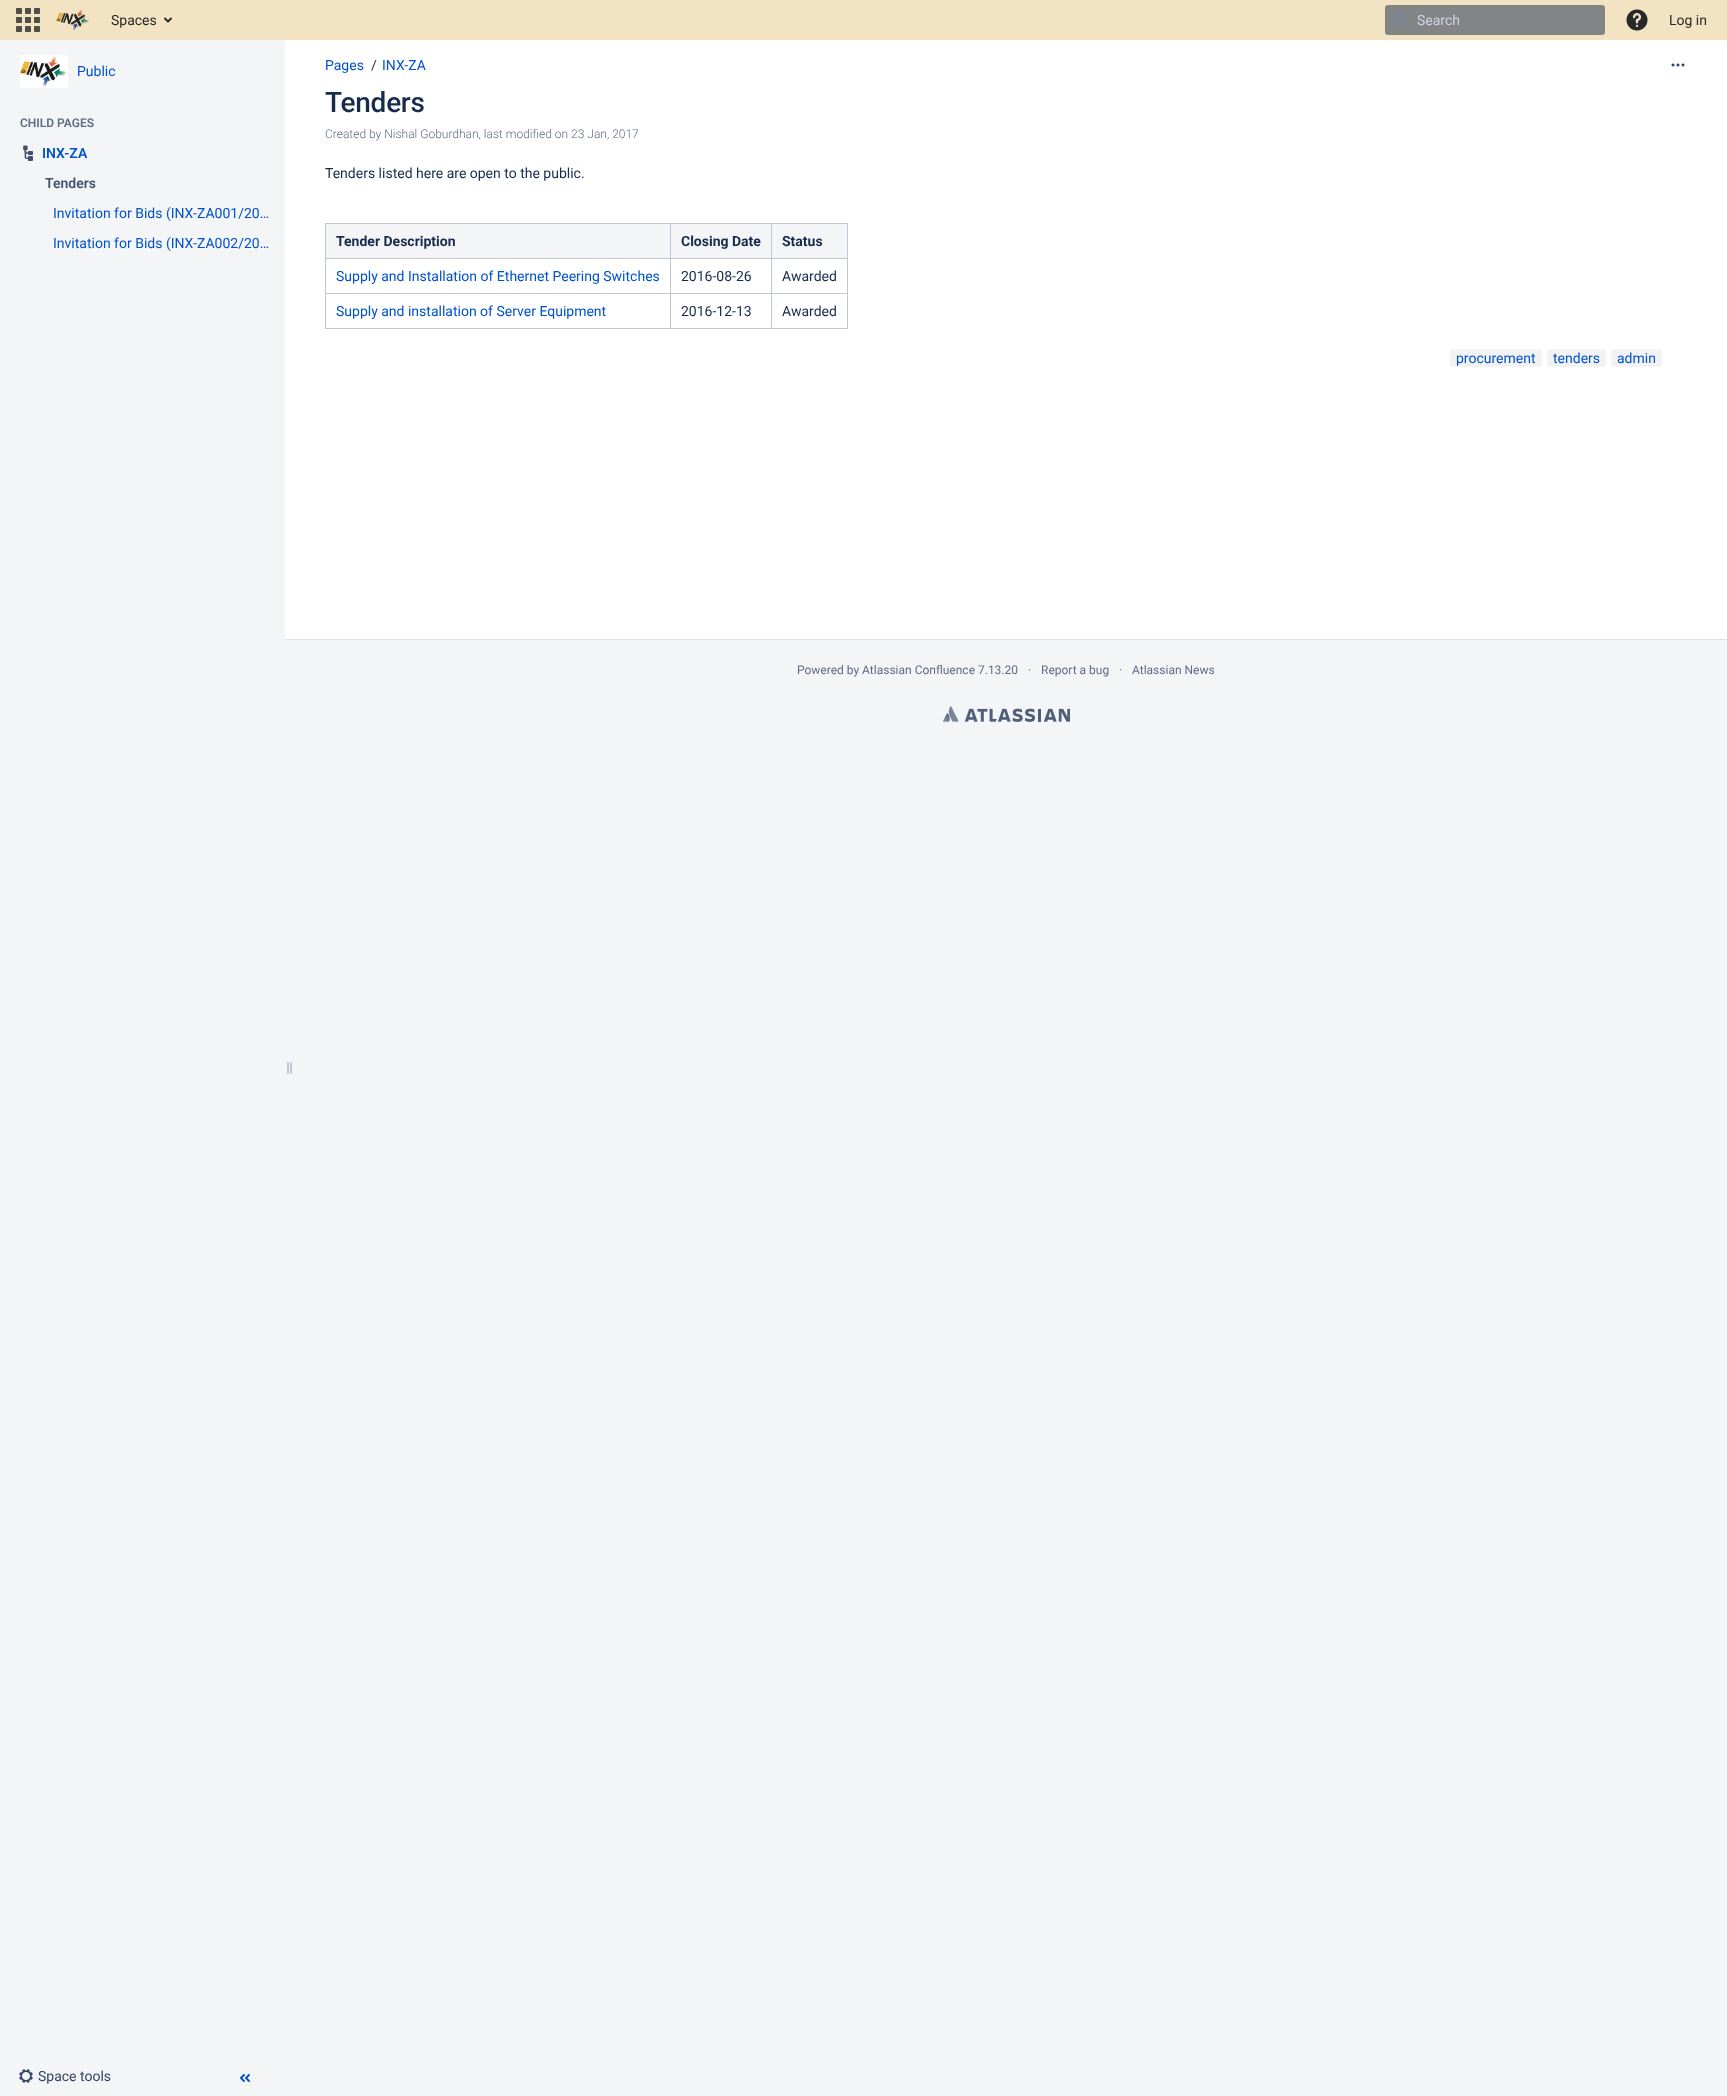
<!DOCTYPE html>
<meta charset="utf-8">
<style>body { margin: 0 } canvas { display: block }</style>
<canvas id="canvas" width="1727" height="2096"></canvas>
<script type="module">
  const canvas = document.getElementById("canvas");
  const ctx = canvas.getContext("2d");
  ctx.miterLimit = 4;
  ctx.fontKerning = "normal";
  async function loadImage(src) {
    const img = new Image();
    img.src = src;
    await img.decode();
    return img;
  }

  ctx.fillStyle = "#f4f5f7";
  ctx.fillRect(0, 0, 1727, 2096);
  ctx.fillStyle = "#f2e3c2";
  ctx.fillRect(0, 0, 1727, 40);
  ctx.drawImage(await loadImage("img1.png"), 16, 8, 24, 24);
  ctx.drawImage(await loadImage("img2.png"), 56, 9, 34, 22);
  ctx.font = "14px Roboto";
  ctx.fillStyle = "#292929";
  ctx.fillText("Spaces", 111, 25);
  ctx.drawImage(await loadImage("img3.png"), 164, 17, 8, 6);
  ctx.fillStyle = "#828485";
  ctx.beginPath();
  ctx.roundRect(1385, 5, 220, 30, 3);
  ctx.fill();
  ctx.drawImage(await loadImage("img4.png"), 1393, 13, 14, 14);
  ctx.fillStyle = "#ccd6e7";
  ctx.fillText("Search", 1417, 25);
  ctx.drawImage(await loadImage("img5.png"), 1626, 9, 22, 22);
  ctx.fillStyle = "#292929";
  ctx.fillText("Log in", 1669, 25);
  ctx.fillStyle = "#ffffff";
  ctx.beginPath();
  ctx.roundRect(20, 55, 48, 33, 3);
  ctx.fill();
  ctx.drawImage(await loadImage("img6.png"), 20, 56, 47, 31);
  ctx.fillStyle = "#0052cc";
  ctx.fillText("Public", 77, 76);
  ctx.font = "600 12px Roboto";
  ctx.fillStyle = "#5e6c84";
  ctx.fillText("CHILD PAGES", 20, 127);
  ctx.drawImage(await loadImage("img7.png"), 23, 145, 10, 16);
  ctx.font = "600 14px Roboto";
  ctx.fillStyle = "#0052cc";
  ctx.fillText("INX-ZA", 42, 158);
  ctx.fillStyle = "#42526e";
  ctx.fillText("Tenders", 45, 188);
  ctx.font = "14px Roboto";
  ctx.fillStyle = "#0052cc";
  ctx.fillText("Invitation for Bids (INX-ZA001/20…", 53, 218);
  ctx.fillText("Invitation for Bids (INX-ZA002/20…", 53, 248);
  ctx.drawImage(await loadImage("img8.png"), 287, 1062, 5, 12);
  ctx.drawImage(await loadImage("img9.png"), 19, 2069, 14, 14);
  ctx.fillStyle = "#344563";
  ctx.fillText("Space tools", 38, 2081);
  ctx.drawImage(await loadImage("img10.png"), 240, 2074, 10, 8);
  ctx.fillStyle = "#ffffff";
  ctx.fillRect(285, 40, 1442, 599);
  ctx.fillStyle = "#dfe1e6";
  ctx.fillRect(285, 639, 1442, 1);
  ctx.fillStyle = "#0052cc";
  ctx.fillText("Pages", 325, 70);
  ctx.fillStyle = "#333333";
  ctx.fillText("/", 371, 70);
  ctx.fillStyle = "#0052cc";
  ctx.fillText("INX-ZA", 382, 70);
  ctx.letterSpacing = "-0.25px";
  ctx.font = "500 28px Roboto";
  ctx.fillStyle = "#172b4d";
  ctx.fillText("Tenders", 325, 112);
  ctx.drawImage(await loadImage("img11.png"), 1671, 63, 14, 4);
  ctx.letterSpacing = "0px";
  ctx.font = "300 12px Roboto";
  ctx.fillStyle = "#5e6c84";
  ctx.fillText("Created by Nishal Goburdhan, last modified on 23 Jan, 2017", 325, 138);
  ctx.font = "14px Roboto";
  ctx.fillStyle = "#172b4d";
  ctx.fillText("Tenders listed here are open to the public.", 325, 178);
  ctx.fillStyle = "#f4f5f7";
  ctx.fillRect(326, 224, 344, 34);
  ctx.fillStyle = "#c1c7d0";
  ctx.fillRect(771, 223, 77, 1);
  ctx.fillRect(771, 258, 77, 1);
  ctx.fillRect(771, 293, 77, 1);
  ctx.fillRect(847, 293, 1, 36);
  ctx.fillRect(771, 328, 77, 1);
  ctx.fillRect(771, 293, 1, 36);
  ctx.fillRect(670, 293, 102, 1);
  ctx.fillRect(771, 258, 1, 36);
  ctx.fillRect(670, 258, 102, 1);
  ctx.fillRect(771, 223, 1, 36);
  ctx.fillRect(670, 223, 102, 1);
  ctx.fillRect(670, 328, 102, 1);
  ctx.fillRect(670, 293, 1, 36);
  ctx.fillRect(325, 293, 346, 1);
  ctx.fillRect(670, 258, 1, 36);
  ctx.fillRect(325, 258, 346, 1);
  ctx.fillRect(670, 223, 1, 36);
  ctx.fillRect(325, 223, 346, 1);
  ctx.fillRect(325, 328, 346, 1);
  ctx.fillRect(325, 293, 1, 36);
  ctx.fillRect(325, 258, 1, 36);
  ctx.fillRect(325, 223, 1, 36);
  ctx.font = "bold 14px Roboto";
  ctx.fillStyle = "#172b4d";
  ctx.fillText("Tender Description", 336, 246);
  ctx.fillStyle = "#f4f5f7";
  ctx.fillRect(671, 224, 100, 34);
  ctx.fillStyle = "#172b4d";
  ctx.fillText("Closing Date", 681, 246);
  ctx.fillStyle = "#f4f5f7";
  ctx.fillRect(772, 224, 75, 34);
  ctx.fillStyle = "#c1c7d0";
  ctx.fillRect(847, 258, 1, 36);
  ctx.fillRect(847, 223, 1, 36);
  ctx.fillStyle = "#172b4d";
  ctx.fillText("Status", 782, 246);
  ctx.font = "14px Roboto";
  ctx.fillStyle = "#0052cc";
  ctx.fillText("Supply and Installation of Ethernet Peering Switches", 336, 281);
  ctx.fillStyle = "#172b4d";
  ctx.fillText("2016-08-26", 681, 281);
  ctx.fillText("Awarded", 782, 281);
  ctx.fillStyle = "#0052cc";
  ctx.fillText("Supply and installation of Server Equipment", 336, 316);
  ctx.fillStyle = "#172b4d";
  ctx.fillText("2016-12-13", 681, 316);
  ctx.fillText("Awarded", 782, 316);
  ctx.fillStyle = "#f2f2f2";
  ctx.beginPath();
  ctx.roundRect(1450.5, 349.5, 91, 17, 2.5);
  ctx.fill();
  ctx.strokeStyle = "#f4f5f7";
  ctx.stroke();
  ctx.fillStyle = "#0052cc";
  ctx.fillText("procurement", 1456, 363);
  ctx.fillStyle = "#f2f2f2";
  ctx.beginPath();
  ctx.roundRect(1547.5, 349.5, 58, 17, 2.5);
  ctx.fill();
  ctx.stroke();
  ctx.fillStyle = "#0052cc";
  ctx.fillText("tenders", 1553, 363);
  ctx.fillStyle = "#f2f2f2";
  ctx.beginPath();
  ctx.roundRect(1611.5, 349.5, 50, 17, 2.5);
  ctx.fill();
  ctx.stroke();
  ctx.fillStyle = "#0052cc";
  ctx.fillText("admin", 1617, 363);
  ctx.font = "12px Roboto";
  ctx.fillStyle = "#5e6c84";
  ctx.fillText("Powered by Atlassian Confluence 7.13.20", 797, 674);
  ctx.fillText("·", 1028, 674);
  ctx.fillText("Report a bug", 1041, 674);
  ctx.fillText("·", 1119, 674);
  ctx.fillText("Atlassian News", 1132, 674);
  ctx.drawImage(await loadImage("img12.png"), 943, 706, 127, 16);
</script>
